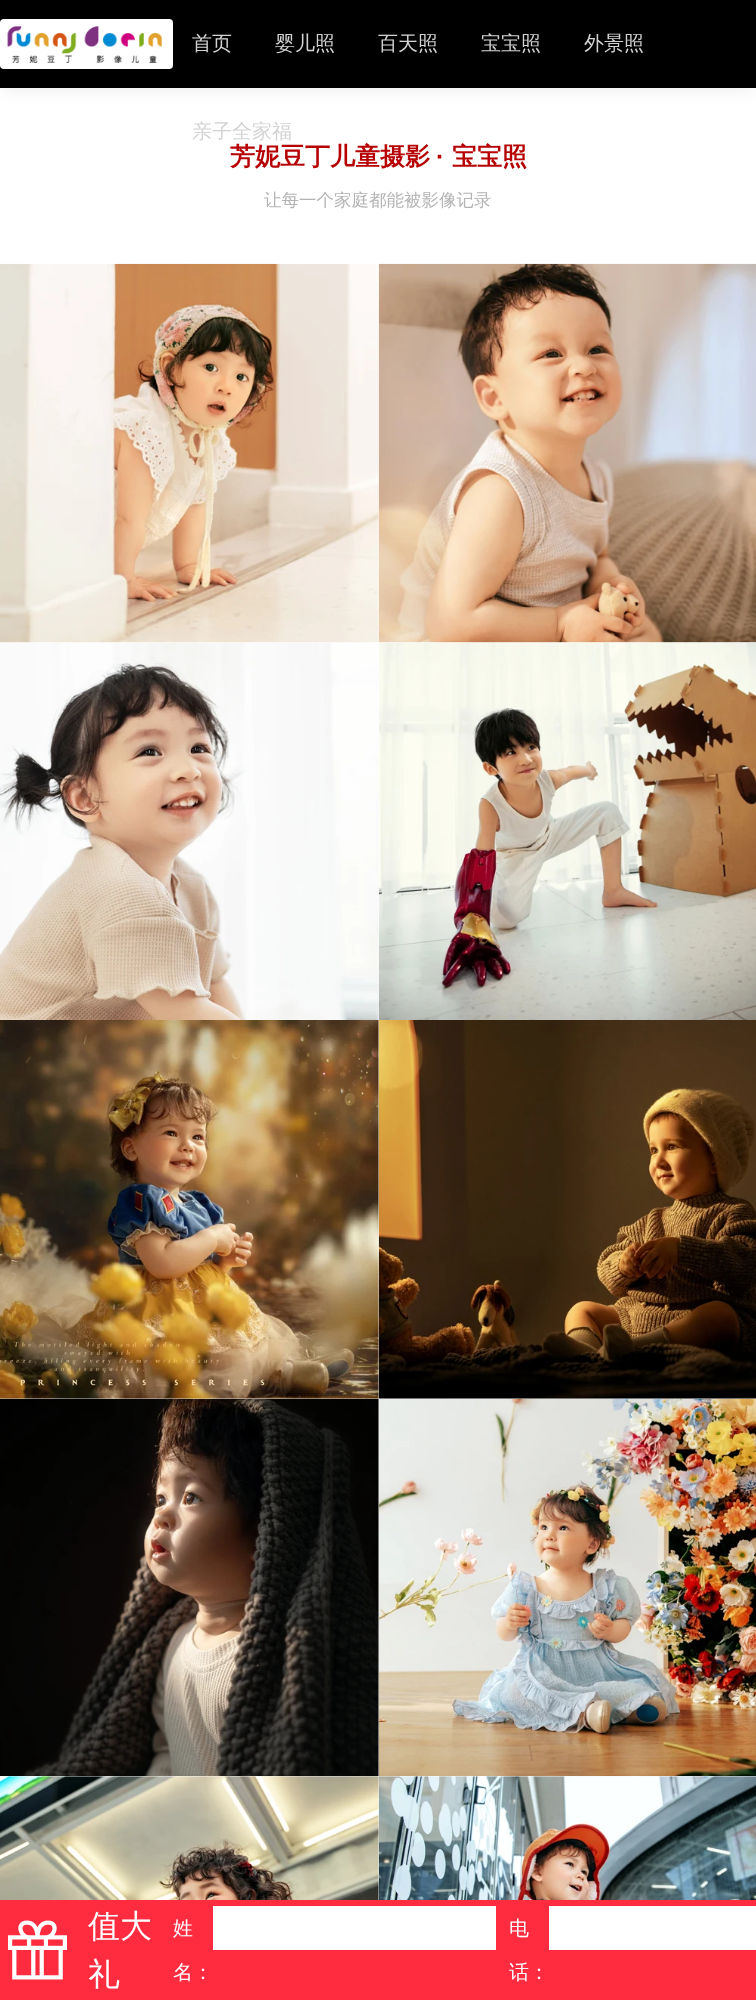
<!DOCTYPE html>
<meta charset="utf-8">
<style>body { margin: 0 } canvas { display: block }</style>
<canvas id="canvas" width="756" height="2000"></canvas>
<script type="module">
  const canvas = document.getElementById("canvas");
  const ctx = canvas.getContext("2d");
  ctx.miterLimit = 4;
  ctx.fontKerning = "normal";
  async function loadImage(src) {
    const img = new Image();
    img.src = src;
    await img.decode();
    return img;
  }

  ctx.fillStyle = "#ffffff";
  ctx.fillRect(0, 0, 756, 2000);
  ctx.fillStyle = "rgba(0, 0, 0, 0.06)";
  ctx.filter = "blur(7.5px)";
  ctx.beginPath();
  ctx.rect(1, 6, 754, 85);
  ctx.fill();
  ctx.filter = "none";
  ctx.fillStyle = "#000000";
  ctx.fillRect(0, 0, 756, 88);
  ctx.fillStyle = "#ffffff";
  ctx.beginPath();
  ctx.roundRect(0, 19, 173, 50, 4);
  ctx.fill();
  ctx.drawImage(await loadImage("img1.png"), 7, 26, 155, 37);
  ctx.font = "500 20px WenQuanYi Zen Hei";
  ctx.fillStyle = "#d3d3d3";
  ctx.fillText("首页", 192, 50);
  ctx.fillText("婴儿照", 275, 50);
  ctx.fillText("百天照", 378, 50);
  ctx.fillText("宝宝照", 481, 50);
  ctx.fillText("外景照", 584, 50);
  ctx.fillText("亲子全家福", 192, 138);
  ctx.font = "bold 25px WenQuanYi Zen Hei";
  ctx.fillStyle = "#b60203";
  ctx.fillText("芳妮豆丁儿童摄影", 230, 165);
  ctx.font = "bold 25px Liberation Sans";
  ctx.fillText("·", 436, 165);
  ctx.font = "bold 25px WenQuanYi Zen Hei";
  ctx.fillText("宝宝照", 452, 165);
  ctx.font = "500 17.5px WenQuanYi Zen Hei";
  ctx.fillStyle = "#b4b4b4";
  ctx.fillText("让每一个家庭都能被影像记录", 264, 206);
  ctx.drawImage(await loadImage("img2.png"), 0, 263, 379, 380);
  ctx.drawImage(await loadImage("img3.png"), 378, 263, 378, 380);
  ctx.drawImage(await loadImage("img4.png"), 0, 643, 379, 377);
  ctx.drawImage(await loadImage("img5.png"), 378, 642, 378, 378);
  ctx.drawImage(await loadImage("img6.png"), 0, 1020, 379, 379);
  ctx.drawImage(await loadImage("img7.png"), 378, 1020, 378, 379);
  ctx.drawImage(await loadImage("img8.png"), 0, 1398, 379, 379);
  ctx.drawImage(await loadImage("img9.png"), 378, 1398, 378, 379);
  ctx.drawImage(await loadImage("img10.png"), 0, 1776, 379, 124);
  ctx.drawImage(await loadImage("img11.png"), 378, 1776, 378, 124);
  ctx.fillStyle = "#ff2c40";
  ctx.fillRect(0, 1900, 756, 100);
  ctx.drawImage(await loadImage("img12.png"), 8, 1920, 59, 60);
  ctx.font = "500 32px WenQuanYi Zen Hei";
  ctx.fillStyle = "#ffffff";
  ctx.fillText("值大", 88, 1937);
  ctx.fillText("礼", 88, 1985);
  ctx.font = "500 20px WenQuanYi Zen Hei";
  ctx.fillText("姓", 173, 1935);
  ctx.fillText("名：", 173, 1979);
  ctx.fillRect(213, 1906, 283, 44);
  ctx.fillText("电", 509, 1935);
  ctx.fillText("话：", 509, 1979);
  ctx.fillRect(549, 1906, 207, 44);
</script>
